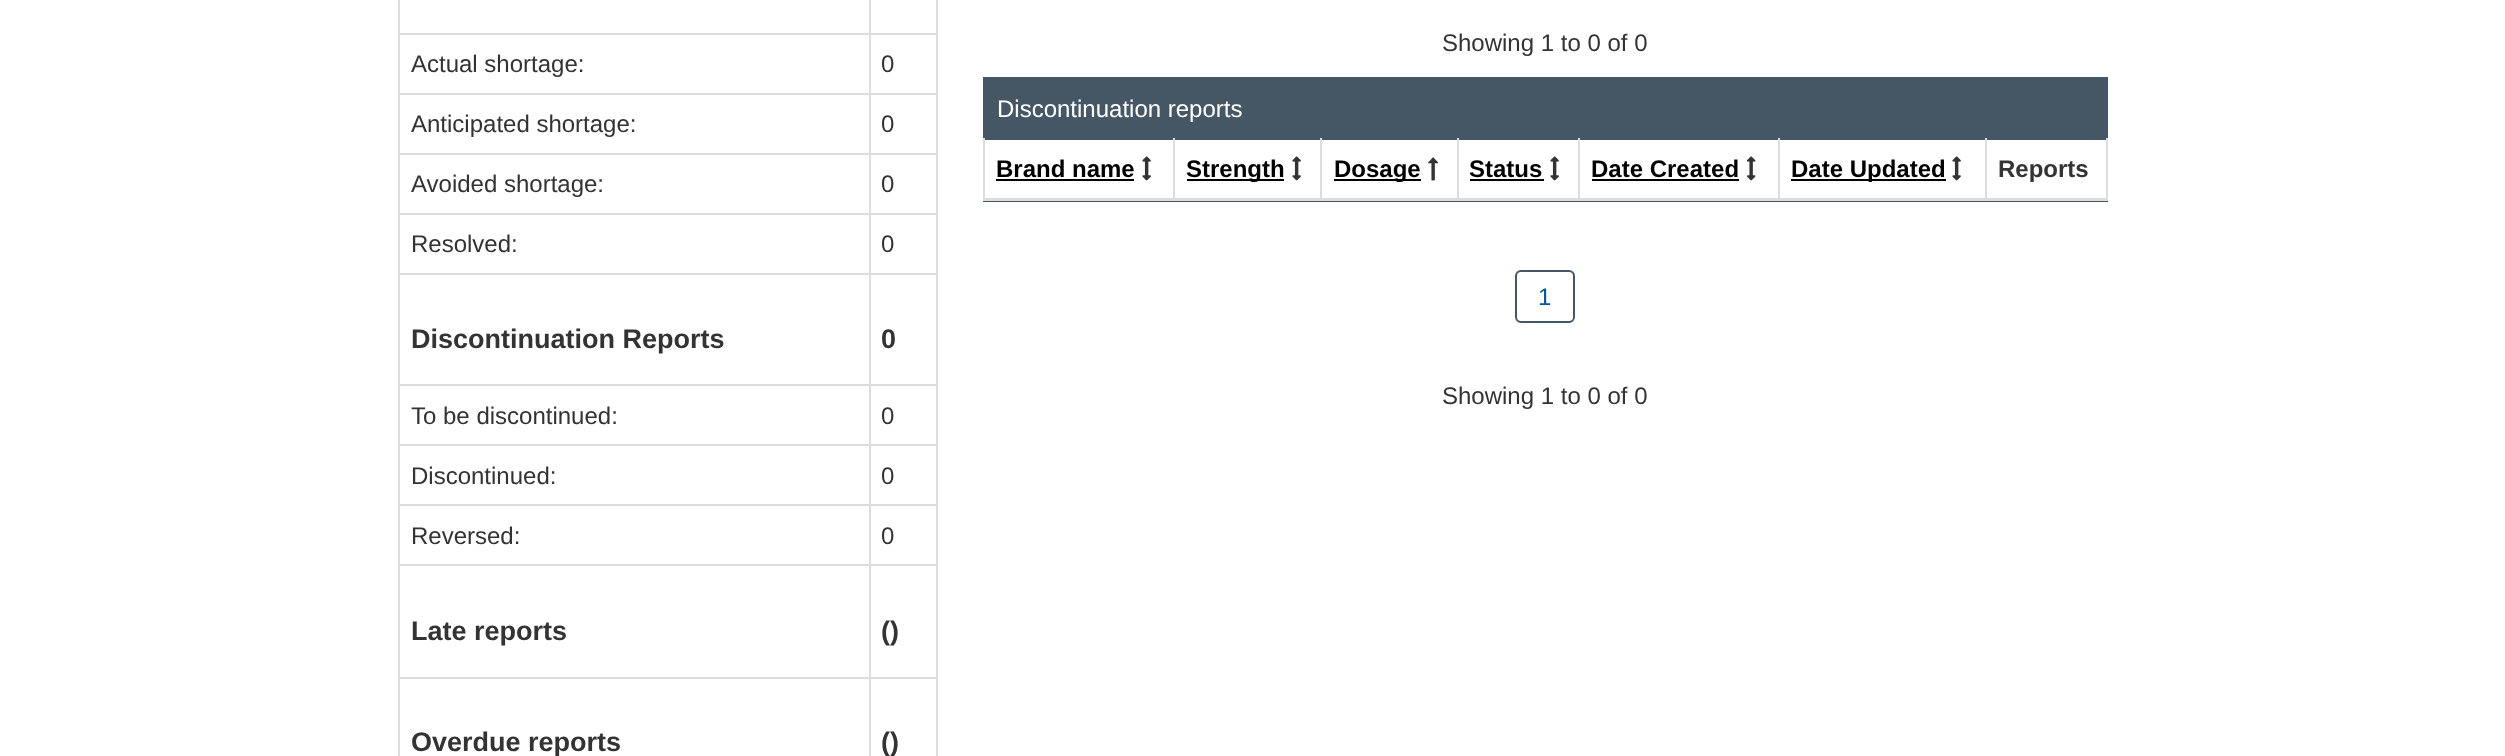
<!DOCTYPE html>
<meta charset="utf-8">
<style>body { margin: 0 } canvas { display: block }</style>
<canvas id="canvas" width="2505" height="756"></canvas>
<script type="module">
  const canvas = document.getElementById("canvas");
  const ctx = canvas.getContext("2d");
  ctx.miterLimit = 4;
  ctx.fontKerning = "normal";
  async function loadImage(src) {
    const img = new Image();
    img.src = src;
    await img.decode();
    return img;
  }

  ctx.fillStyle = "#ffffff";
  ctx.fillRect(0, 0, 2505, 756);
  ctx.fillStyle = "#dddddd";
  ctx.fillRect(936, 0, 2, 756);
  ctx.fillRect(398, 0, 2, 756);
  ctx.fillRect(869, 33, 69, 2);
  ctx.fillRect(869, 93, 69, 2);
  ctx.fillRect(869, 153, 69, 2);
  ctx.fillRect(869, 213, 69, 2);
  ctx.fillRect(869, 273, 69, 2);
  ctx.fillRect(869, 384, 69, 2);
  ctx.fillRect(869, 444, 69, 2);
  ctx.fillRect(869, 504, 69, 2);
  ctx.fillRect(869, 564, 69, 2);
  ctx.fillRect(869, 677, 69, 2);
  ctx.fillRect(869, 677, 2, 79);
  ctx.fillRect(398, 677, 472, 2);
  ctx.fillRect(869, 564, 2, 114);
  ctx.fillRect(398, 564, 472, 2);
  ctx.fillRect(869, 504, 2, 62);
  ctx.fillRect(398, 504, 472, 2);
  ctx.fillRect(869, 444, 2, 62);
  ctx.fillRect(398, 444, 472, 2);
  ctx.fillRect(869, 384, 2, 62);
  ctx.fillRect(398, 384, 472, 2);
  ctx.fillRect(869, 273, 2, 113);
  ctx.fillRect(398, 273, 472, 2);
  ctx.fillRect(869, 213, 2, 62);
  ctx.fillRect(398, 213, 472, 2);
  ctx.fillRect(869, 153, 2, 62);
  ctx.fillRect(398, 153, 472, 2);
  ctx.fillRect(869, 93, 2, 62);
  ctx.fillRect(398, 93, 472, 2);
  ctx.fillRect(869, 33, 2, 62);
  ctx.fillRect(398, 33, 472, 2);
  ctx.fillRect(869, 0, 2, 35);
  ctx.font = "24px Liberation Sans";
  ctx.fillStyle = "#333333";
  ctx.fillText("Actual shortage:", 411, 72);
  ctx.fillText("0", 881, 72);
  ctx.fillText("Anticipated shortage:", 411, 132);
  ctx.fillText("0", 881, 132);
  ctx.fillText("Avoided shortage:", 411, 192);
  ctx.fillText("0", 881, 192);
  ctx.fillText("Resolved:", 411, 252);
  ctx.fillText("0", 881, 252);
  ctx.font = "bold 27px Liberation Sans";
  ctx.fillText("Discontinuation Reports", 411, 348);
  ctx.fillText("0", 881, 348);
  ctx.font = "24px Liberation Sans";
  ctx.fillText("To be discontinued:", 411, 424);
  ctx.fillText("0", 881, 424);
  ctx.fillText("Discontinued:", 411, 484);
  ctx.fillText("0", 881, 484);
  ctx.fillText("Reversed:", 411, 544);
  ctx.fillText("0", 881, 544);
  ctx.font = "bold 27px Liberation Sans";
  ctx.fillText("Late reports", 411, 640);
  ctx.fillText("()", 881, 640);
  ctx.fillText("Overdue reports", 411, 751);
  ctx.fillText("()", 881, 751);
  ctx.font = "24px Liberation Sans";
  ctx.fillText("Showing 1 to 0 of 0", 1442, 51);
  ctx.fillStyle = "#455664";
  ctx.fillRect(983, 77, 1125, 63);
  ctx.fillStyle = "#ffffff";
  ctx.fillText("Discontinuation reports", 997, 117);
  ctx.fillStyle = "#455664";
  ctx.fillRect(983, 201, 1125, 1);
  ctx.fillStyle = "#dddddd";
  ctx.fillRect(983, 138, 2, 63);
  ctx.font = "bold 24px Liberation Sans";
  ctx.fillStyle = "#000000";
  ctx.fillText("Brand name", 996, 177);
  ctx.fillRect(996, 179, 138, 2);
  ctx.drawImage(await loadImage("img1.png"), 1142, 156, 9, 25);
  ctx.fillStyle = "#dddddd";
  ctx.fillRect(1173, 138, 2, 63);
  ctx.fillStyle = "#000000";
  ctx.fillRect(1187, 179, 97, 2);
  ctx.fillText("Strength", 1186, 177);
  ctx.drawImage(await loadImage("img1.png"), 1292, 156, 9, 25);
  ctx.fillStyle = "#dddddd";
  ctx.fillRect(1320, 138, 2, 63);
  ctx.fillStyle = "#000000";
  ctx.fillRect(1334, 179, 87, 2);
  ctx.fillText("Dosage", 1334, 177);
  ctx.drawImage(await loadImage("img2.png"), 1428, 157, 11, 24);
  ctx.fillStyle = "#dddddd";
  ctx.fillRect(1457, 138, 2, 63);
  ctx.fillStyle = "#000000";
  ctx.fillText("Status", 1469, 177);
  ctx.fillRect(1470, 179, 74, 2);
  ctx.drawImage(await loadImage("img1.png"), 1550, 156, 9, 25);
  ctx.fillStyle = "#dddddd";
  ctx.fillRect(1578, 138, 2, 63);
  ctx.fillStyle = "#000000";
  ctx.fillText("Date Created", 1591, 177);
  ctx.fillRect(1592, 179, 147, 2);
  ctx.drawImage(await loadImage("img3.png"), 1746, 156, 10, 25);
  ctx.fillStyle = "#dddddd";
  ctx.fillRect(1778, 138, 2, 63);
  ctx.fillStyle = "#000000";
  ctx.fillRect(1791, 179, 155, 2);
  ctx.fillText("Date Updated", 1791, 177);
  ctx.drawImage(await loadImage("img1.png"), 1952, 156, 9, 25);
  ctx.fillStyle = "#dddddd";
  ctx.fillRect(2106, 138, 2, 63);
  ctx.fillRect(1985, 138, 2, 63);
  ctx.fillRect(983, 198, 1125, 3);
  ctx.fillStyle = "#333333";
  ctx.fillText("Reports", 1998, 177);
  ctx.beginPath();
  ctx.roundRect(1516, 271, 58, 51, 5);
  ctx.strokeStyle = "#455664";
  ctx.lineWidth = 2;
  ctx.stroke();
  ctx.font = "24px Liberation Sans";
  ctx.fillStyle = "#005897";
  ctx.fillText("1", 1538, 305);
  ctx.fillStyle = "#333333";
  ctx.fillText("Showing 1 to 0 of 0", 1442, 404);
</script>
